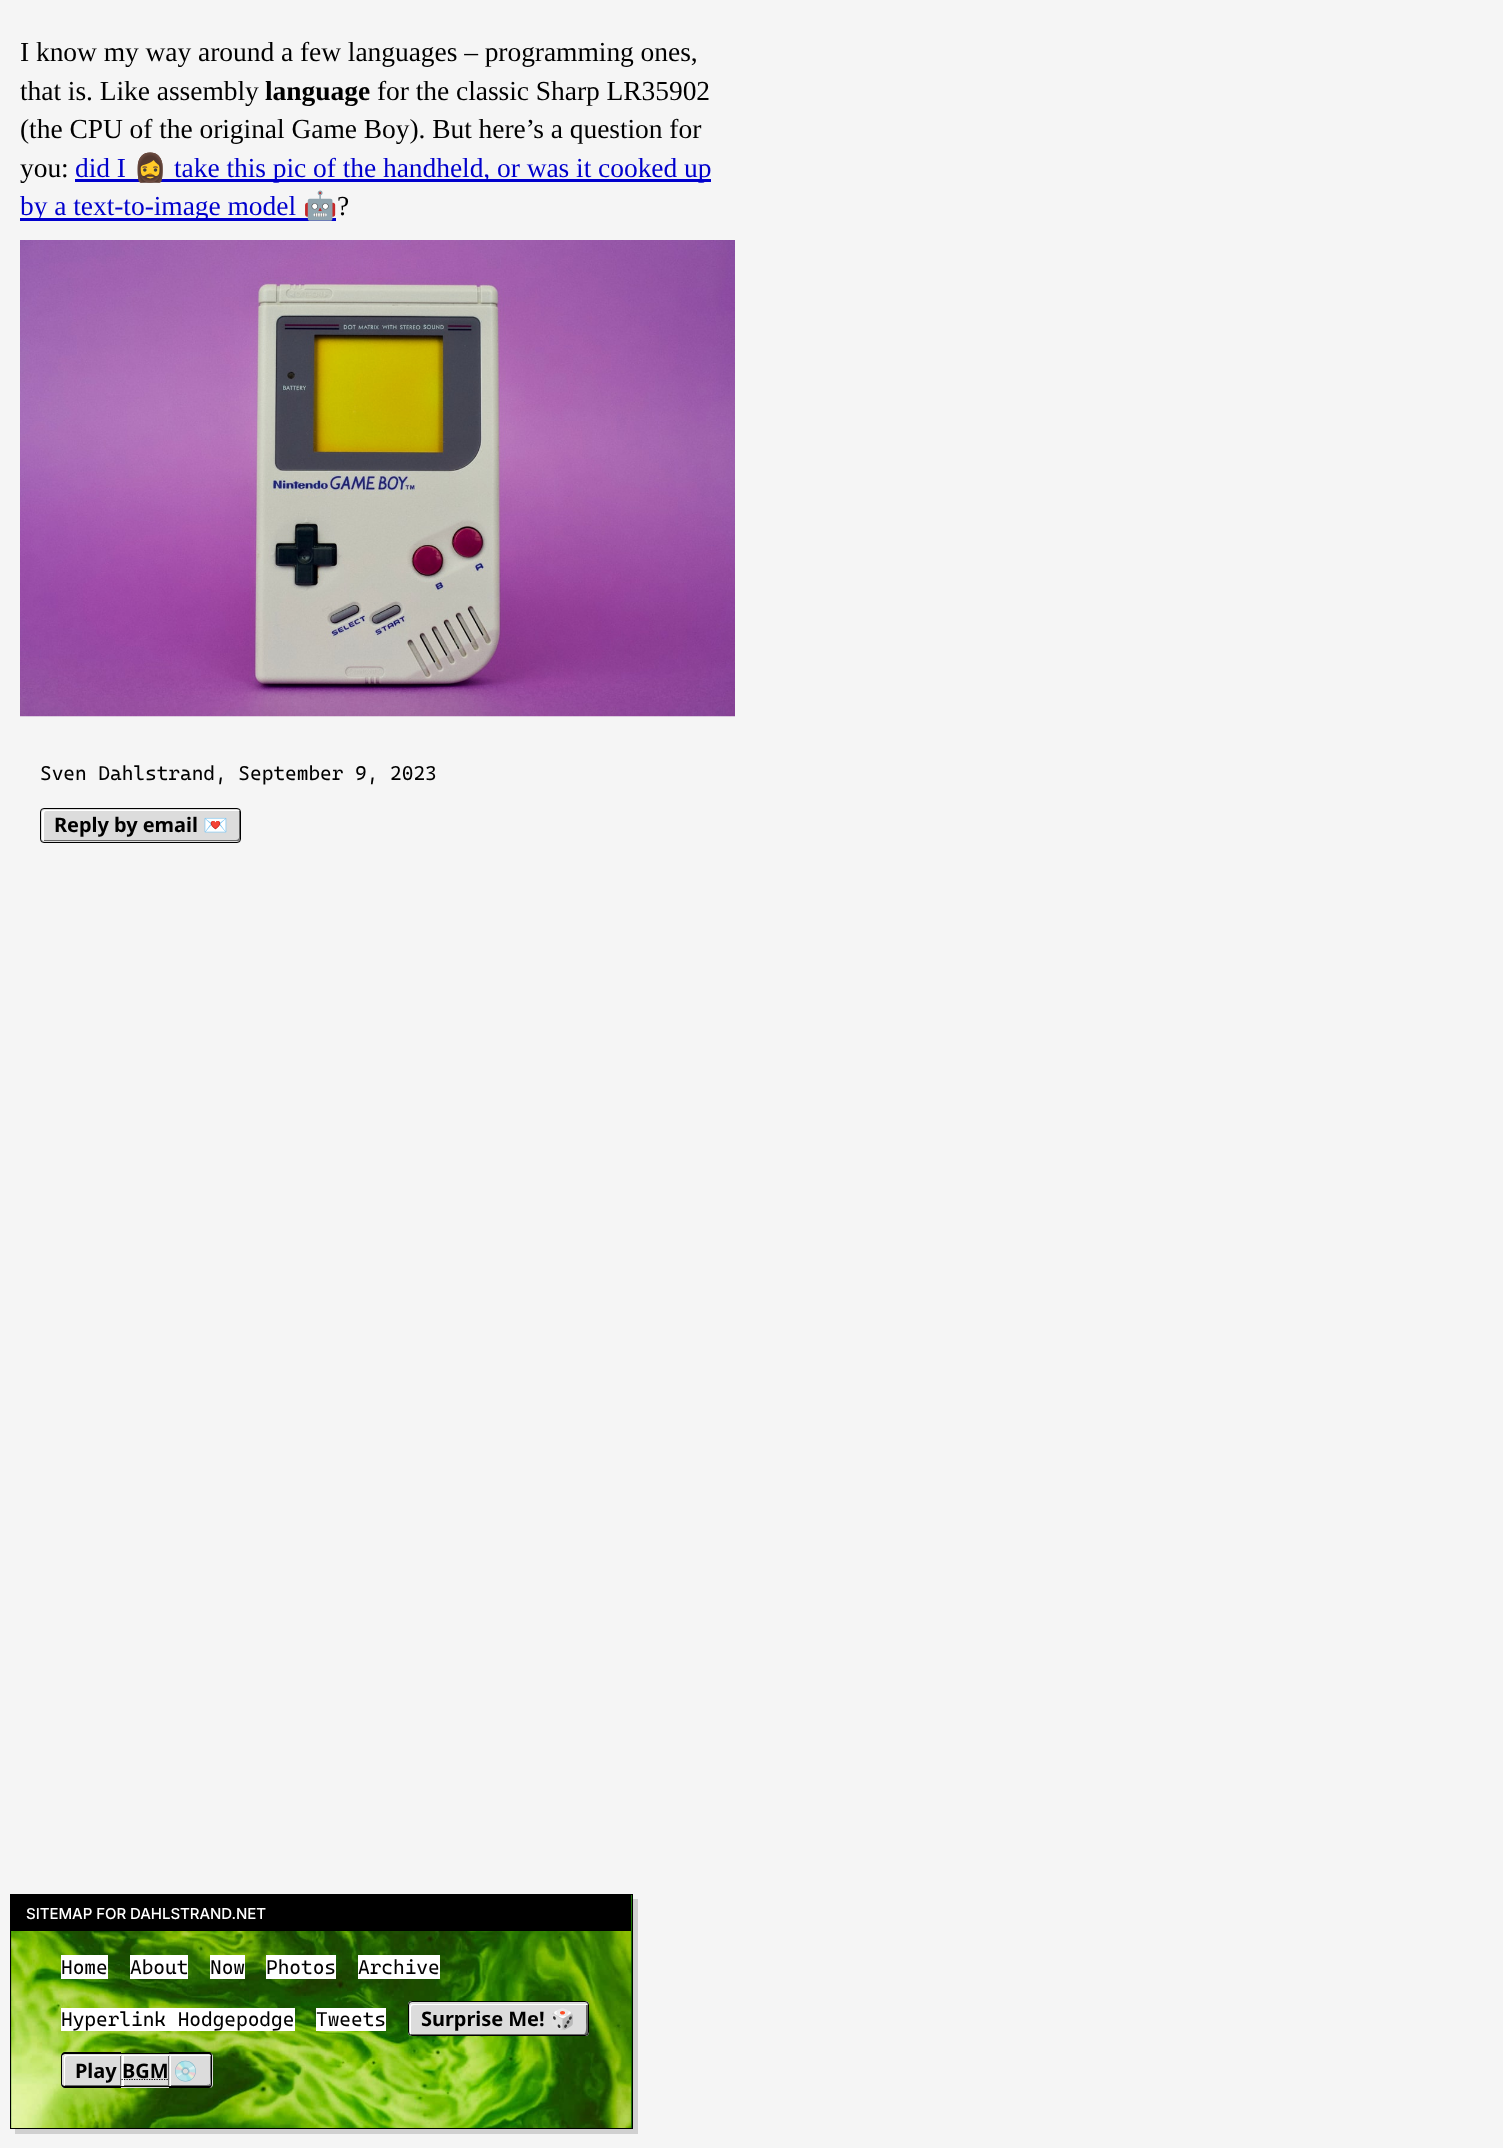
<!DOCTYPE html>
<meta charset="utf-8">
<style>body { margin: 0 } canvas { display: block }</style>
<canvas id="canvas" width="1503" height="2148"></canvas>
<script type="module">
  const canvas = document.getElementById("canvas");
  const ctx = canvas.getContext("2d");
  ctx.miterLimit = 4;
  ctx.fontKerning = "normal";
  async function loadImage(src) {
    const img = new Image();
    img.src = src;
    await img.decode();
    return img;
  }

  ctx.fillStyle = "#f5f5f5";
  ctx.fillRect(0, 0, 1503, 2148);
  ctx.letterSpacing = "-0.05px";
  ctx.font = "27.5px Liberation Serif";
  ctx.fillStyle = "#000000";
  ctx.fillText("I know my way around a few languages – programming ones,", 20, 61);
  ctx.fillText("that is. Like assembly", 20, 100);
  ctx.font = "bold 27.5px Liberation Serif";
  ctx.fillText("language", 265, 100);
  ctx.font = "27.5px Liberation Serif";
  ctx.fillText("for the classic Sharp LR35902", 377, 100);
  ctx.fillText("(the CPU of the original Game Boy). But here’s a question for", 20, 138);
  ctx.fillText("you:", 20, 177);
  ctx.fillStyle = "#0000cd";
  ctx.fillText("did I", 75, 177);
  ctx.fillRect(75, 179, 636, 3);
  ctx.font = "27.5px Noto Color Emoji";
  ctx.fillText("🧔‍♀️", 133, 177);
  ctx.font = "27.5px Liberation Serif";
  ctx.fillText("take this pic of the handheld, or was it cooked up", 174, 177);
  ctx.fillRect(20, 218, 316, 3);
  ctx.fillText("by a text-to-image model", 20, 215);
  ctx.font = "27.5px Noto Color Emoji";
  ctx.fillText("🤖", 303, 215);
  ctx.font = "27.5px Liberation Serif";
  ctx.fillStyle = "#000000";
  ctx.fillText("?", 337, 215);
  ctx.drawImage(await loadImage("img1.png"), 20, 240, 715, 477);
  ctx.font = "20px Cascadia Code";
  ctx.fillText("Sven Dahlstrand, September 9, 2023", 40, 780);
  ctx.fillStyle = "#dcdcdc";
  ctx.beginPath();
  ctx.roundRect(40, 808, 201, 35, 4);
  ctx.fill();
  ctx.fillStyle = "#696969";
  ctx.beginPath();
  ctx.moveTo(41, 840);
  ctx.bezierCurveTo(42, 841, 43, 841, 44, 841);
  ctx.lineTo(238, 841);
  ctx.bezierCurveTo(239, 841, 240, 840, 240, 838);
  ctx.lineTo(240, 812);
  ctx.bezierCurveTo(240, 811, 240, 810, 239, 809);
  ctx.lineTo(239, 833);
  ctx.bezierCurveTo(239, 836, 240, 840, 236, 840);
  ctx.closePath();
  ctx.fill();
  ctx.fillStyle = "#ffffff";
  ctx.beginPath();
  ctx.moveTo(46, 811);
  ctx.lineTo(240, 811);
  ctx.bezierCurveTo(240, 810, 239, 809, 238, 809);
  ctx.lineTo(44, 809);
  ctx.bezierCurveTo(42, 809, 41, 810, 41, 812);
  ctx.lineTo(41, 838);
  ctx.bezierCurveTo(41, 840, 42, 841, 44, 841);
  ctx.lineTo(44, 814);
  ctx.bezierCurveTo(44, 812, 45, 811, 46, 811);
  ctx.closePath();
  ctx.fill();
  ctx.fillStyle = "#dcdcdc";
  ctx.beginPath();
  ctx.moveTo(45, 810);
  ctx.lineTo(240, 810);
  ctx.bezierCurveTo(239, 809, 238, 809, 238, 809);
  ctx.lineTo(44, 809);
  ctx.bezierCurveTo(42, 809, 41, 810, 41, 812);
  ctx.lineTo(41, 838);
  ctx.bezierCurveTo(41, 839, 42, 840, 42, 841);
  ctx.lineTo(42, 817);
  ctx.bezierCurveTo(42, 814, 41, 810, 45, 810);
  ctx.closePath();
  ctx.fill();
  ctx.beginPath();
  ctx.roundRect(40.5, 808.5, 200, 34, 3.5);
  ctx.strokeStyle = "#000000";
  ctx.stroke();
  ctx.font = "bold 20px Noto Sans";
  ctx.fillStyle = "#000000";
  ctx.fillText("Reply by email", 54, 832);
  ctx.font = "bold 20px Noto Color Emoji";
  ctx.fillText("💌", 203, 832);
  ctx.fillStyle = "#d0d0d0";
  ctx.beginPath();
  ctx.moveTo(15, 2129);
  ctx.lineTo(15, 2134);
  ctx.lineTo(638, 2134);
  ctx.lineTo(638, 1899);
  ctx.lineTo(632, 1899);
  ctx.lineTo(632, 2129);
  ctx.closePath();
  ctx.fill();
  ctx.fillStyle = "#006400";
  ctx.fillRect(11, 1895, 621, 233);
  ctx.drawImage(await loadImage("img2.png"), 11, 1895, 621, 233);
  ctx.strokeRect(10.5, 1894.5, 622, 234);
  ctx.fillStyle = "#000000";
  ctx.fillRect(11, 1895, 620, 36);
  ctx.font = "500 15px Inter";
  ctx.fillStyle = "#ffffff";
  ctx.fillText("SITEMAP FOR DAHLSTRAND.NET", 26, 1919);
  ctx.fillRect(61, 1955, 47, 24);
  ctx.font = "20px Cascadia Code";
  ctx.fillStyle = "#000000";
  ctx.fillText("Home", 61, 1974);
  ctx.fillStyle = "#ffffff";
  ctx.fillRect(130, 1955, 58, 24);
  ctx.fillStyle = "#000000";
  ctx.fillText("About", 130, 1974);
  ctx.fillStyle = "#ffffff";
  ctx.fillRect(210, 1955, 35, 24);
  ctx.fillStyle = "#000000";
  ctx.fillText("Now", 210, 1974);
  ctx.fillStyle = "#ffffff";
  ctx.fillRect(266, 1955, 70, 24);
  ctx.fillStyle = "#000000";
  ctx.fillText("Photos", 266, 1974);
  ctx.fillStyle = "#ffffff";
  ctx.fillRect(358, 1955, 82, 24);
  ctx.fillStyle = "#000000";
  ctx.fillText("Archive", 358, 1974);
  ctx.fillStyle = "#ffffff";
  ctx.fillRect(61, 2008, 234, 23);
  ctx.fillStyle = "#000000";
  ctx.fillText("Hyperlink Hodgepodge", 61, 2026);
  ctx.fillStyle = "#ffffff";
  ctx.fillRect(316, 2008, 70, 23);
  ctx.fillStyle = "#000000";
  ctx.fillText("Tweets", 316, 2026);
  ctx.fillStyle = "#dcdcdc";
  ctx.beginPath();
  ctx.roundRect(408, 2001, 181, 35, 4);
  ctx.fill();
  ctx.fillStyle = "#696969";
  ctx.beginPath();
  ctx.moveTo(409, 2034);
  ctx.bezierCurveTo(410, 2035, 411, 2035, 412, 2035);
  ctx.lineTo(586, 2035);
  ctx.bezierCurveTo(587, 2035, 588, 2034, 588, 2032);
  ctx.lineTo(588, 2006);
  ctx.bezierCurveTo(588, 2004, 587, 2003, 586, 2003);
  ctx.lineTo(586, 2022);
  ctx.bezierCurveTo(586, 2023, 587, 2034, 584, 2034);
  ctx.closePath();
  ctx.fill();
  ctx.fillStyle = "#ffffff";
  ctx.beginPath();
  ctx.moveTo(414, 2005);
  ctx.lineTo(588, 2005);
  ctx.bezierCurveTo(588, 2004, 587, 2003, 586, 2003);
  ctx.lineTo(412, 2003);
  ctx.bezierCurveTo(410, 2003, 409, 2004, 409, 2006);
  ctx.lineTo(409, 2032);
  ctx.bezierCurveTo(409, 2034, 410, 2035, 411, 2035);
  ctx.lineTo(411, 2008);
  ctx.bezierCurveTo(411, 2006, 412, 2005, 414, 2005);
  ctx.closePath();
  ctx.fill();
  ctx.fillStyle = "#dcdcdc";
  ctx.beginPath();
  ctx.moveTo(412, 2004);
  ctx.lineTo(588, 2004);
  ctx.bezierCurveTo(587, 2004, 586, 2003, 586, 2003);
  ctx.lineTo(412, 2003);
  ctx.bezierCurveTo(410, 2003, 409, 2004, 409, 2006);
  ctx.lineTo(409, 2032);
  ctx.bezierCurveTo(409, 2033, 409, 2034, 410, 2035);
  ctx.lineTo(410, 2011);
  ctx.bezierCurveTo(410, 2010, 409, 2004, 412, 2004);
  ctx.closePath();
  ctx.fill();
  ctx.beginPath();
  ctx.roundRect(408.5, 2001.5, 180, 34, 3.5);
  ctx.stroke();
  ctx.font = "bold 20px Noto Sans";
  ctx.fillStyle = "#000000";
  ctx.fillText("Surprise Me!", 421, 2026);
  ctx.font = "bold 20px Noto Color Emoji";
  ctx.fillText("🎲", 550, 2026);
  ctx.fillStyle = "#dcdcdc";
  ctx.beginPath();
  ctx.roundRect(61, 2053, 60, 35, [4, 0, 0, 4]);
  ctx.fill();
  ctx.fillStyle = "#696969";
  ctx.beginPath();
  ctx.moveTo(63, 2085);
  ctx.lineTo(65, 2086);
  ctx.lineTo(121, 2086);
  ctx.lineTo(121, 2054);
  ctx.lineTo(120, 2054);
  ctx.lineTo(120, 2085);
  ctx.closePath();
  ctx.fill();
  ctx.fillStyle = "#ffffff";
  ctx.beginPath();
  ctx.moveTo(68, 2056);
  ctx.lineTo(121, 2056);
  ctx.lineTo(121, 2054);
  ctx.lineTo(66, 2054);
  ctx.bezierCurveTo(64, 2054, 63, 2055, 63, 2056);
  ctx.lineTo(63, 2084);
  ctx.bezierCurveTo(63, 2085, 64, 2086, 65, 2086);
  ctx.lineTo(65, 2059);
  ctx.bezierCurveTo(65, 2057, 66, 2056, 68, 2056);
  ctx.closePath();
  ctx.fill();
  ctx.fillStyle = "#dcdcdc";
  ctx.beginPath();
  ctx.moveTo(66, 2055);
  ctx.lineTo(121, 2055);
  ctx.lineTo(121, 2054);
  ctx.lineTo(66, 2054);
  ctx.bezierCurveTo(64, 2054, 63, 2055, 63, 2056);
  ctx.lineTo(63, 2084);
  ctx.bezierCurveTo(63, 2084, 63, 2085, 64, 2086);
  ctx.lineTo(64, 2062);
  ctx.bezierCurveTo(64, 2062, 63, 2055, 66, 2055);
  ctx.closePath();
  ctx.fill();
  ctx.fillStyle = "#000000";
  ctx.beginPath();
  ctx.moveTo(65, 2052);
  ctx.lineTo(121, 2052);
  ctx.lineTo(121, 2088);
  ctx.lineTo(65, 2088);
  ctx.bezierCurveTo(63, 2088, 61, 2086, 61, 2084);
  ctx.lineTo(61, 2056);
  ctx.bezierCurveTo(61, 2054, 63, 2052, 65, 2052);
  ctx.closePath();
  ctx.moveTo(65, 2054);
  ctx.lineTo(121, 2054);
  ctx.lineTo(121, 2086);
  ctx.lineTo(65, 2086);
  ctx.bezierCurveTo(64, 2086, 62, 2085, 62, 2084);
  ctx.lineTo(62, 2056);
  ctx.bezierCurveTo(62, 2055, 64, 2054, 65, 2054);
  ctx.closePath();
  ctx.fill("evenodd");
  ctx.font = "bold 20px Noto Sans";
  ctx.fillText("Play", 75, 2078);
  ctx.fillStyle = "#dcdcdc";
  ctx.fillRect(121, 2056, 48, 32);
  ctx.save();
  ctx.beginPath();
  ctx.rect(121, 2054, 48, 32);
  ctx.clip();
  ctx.fillStyle = "#696969";
  ctx.beginPath();
  ctx.moveTo(-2, 1930);
  ctx.lineTo(292, 1930);
  ctx.lineTo(292, 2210);
  ctx.lineTo(-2, 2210);
  ctx.closePath();
  ctx.moveTo(120, 2052);
  ctx.lineTo(168, 2052);
  ctx.lineTo(168, 2085);
  ctx.lineTo(120, 2085);
  ctx.closePath();
  ctx.fill("evenodd");
  ctx.fillStyle = "#ffffff";
  ctx.beginPath();
  ctx.moveTo(-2, 1930);
  ctx.lineTo(292, 1930);
  ctx.lineTo(292, 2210);
  ctx.lineTo(-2, 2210);
  ctx.closePath();
  ctx.moveTo(124, 2056);
  ctx.lineTo(171, 2056);
  ctx.lineTo(171, 2089);
  ctx.lineTo(124, 2089);
  ctx.closePath();
  ctx.fill("evenodd");
  ctx.fillStyle = "#dcdcdc";
  ctx.beginPath();
  ctx.moveTo(-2, 1930);
  ctx.lineTo(292, 1930);
  ctx.lineTo(292, 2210);
  ctx.lineTo(-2, 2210);
  ctx.closePath();
  ctx.moveTo(122, 2055);
  ctx.lineTo(170, 2055);
  ctx.lineTo(170, 2088);
  ctx.lineTo(122, 2088);
  ctx.closePath();
  ctx.fill("evenodd");
  ctx.restore();
  ctx.beginPath();
  ctx.moveTo(121.5, 2079.5);
  ctx.lineTo(168, 2079.5);
  ctx.lineWidth = 1.2;
  ctx.setLineDash([1.25, 1.25]);
  ctx.stroke();
  ctx.fillStyle = "#000000";
  ctx.fillText("BGM", 122, 2078);
  ctx.fillRect(121, 2053, 48, 1);
  ctx.fillRect(121, 2086, 48, 1);
  ctx.fillStyle = "#dcdcdc";
  ctx.beginPath();
  ctx.roundRect(169, 2053, 44, 35, [0, 4, 4, 0]);
  ctx.fill();
  ctx.fillStyle = "#696969";
  ctx.beginPath();
  ctx.moveTo(169, 2085);
  ctx.lineTo(169, 2086);
  ctx.lineTo(195, 2086);
  ctx.bezierCurveTo(212, 2086, 211, 2090, 211, 2074);
  ctx.bezierCurveTo(211, 2071, 212, 2056, 210, 2054);
  ctx.lineTo(210, 2073);
  ctx.bezierCurveTo(210, 2085, 213, 2085, 202, 2085);
  ctx.closePath();
  ctx.fill();
  ctx.fillStyle = "#ffffff";
  ctx.beginPath();
  ctx.moveTo(171, 2056);
  ctx.lineTo(211, 2056);
  ctx.bezierCurveTo(211, 2055, 210, 2054, 208, 2054);
  ctx.lineTo(169, 2054);
  ctx.lineTo(169, 2086);
  ctx.lineTo(171, 2086);
  ctx.closePath();
  ctx.fill();
  ctx.fillStyle = "#dcdcdc";
  ctx.beginPath();
  ctx.moveTo(170, 2055);
  ctx.lineTo(211, 2055);
  ctx.lineTo(209, 2054);
  ctx.lineTo(169, 2054);
  ctx.lineTo(169, 2086);
  ctx.lineTo(170, 2086);
  ctx.closePath();
  ctx.fill();
  ctx.fillStyle = "#000000";
  ctx.beginPath();
  ctx.moveTo(169, 2052);
  ctx.lineTo(209, 2052);
  ctx.bezierCurveTo(211, 2052, 212, 2054, 212, 2056);
  ctx.lineTo(212, 2084);
  ctx.bezierCurveTo(212, 2086, 211, 2088, 209, 2088);
  ctx.lineTo(169, 2088);
  ctx.closePath();
  ctx.moveTo(169, 2054);
  ctx.lineTo(209, 2054);
  ctx.bezierCurveTo(210, 2054, 211, 2055, 211, 2056);
  ctx.lineTo(211, 2084);
  ctx.bezierCurveTo(211, 2085, 210, 2086, 209, 2086);
  ctx.lineTo(169, 2086);
  ctx.closePath();
  ctx.fill("evenodd");
  ctx.font = "bold 20px Noto Color Emoji";
  ctx.fillText("💿", 173, 2078);
</script>
